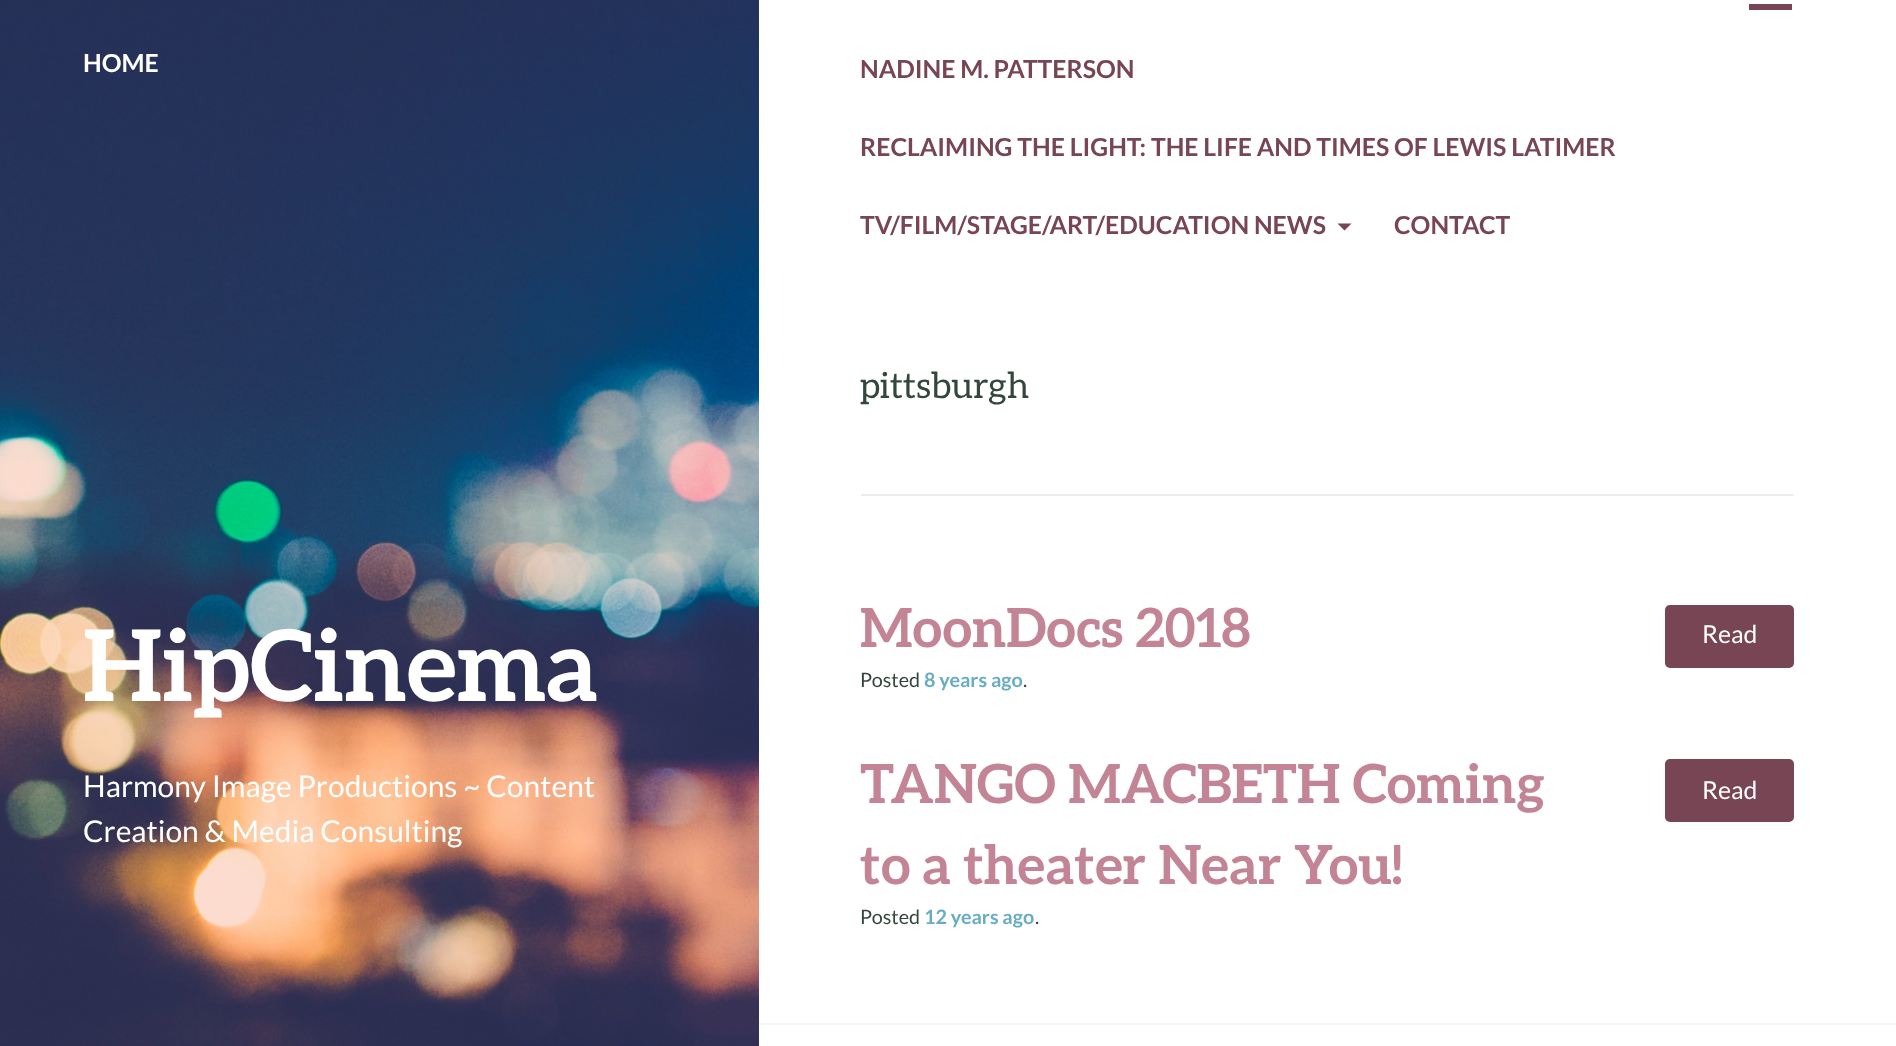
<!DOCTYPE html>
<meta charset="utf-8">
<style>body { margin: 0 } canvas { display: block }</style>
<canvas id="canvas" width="1896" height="1046"></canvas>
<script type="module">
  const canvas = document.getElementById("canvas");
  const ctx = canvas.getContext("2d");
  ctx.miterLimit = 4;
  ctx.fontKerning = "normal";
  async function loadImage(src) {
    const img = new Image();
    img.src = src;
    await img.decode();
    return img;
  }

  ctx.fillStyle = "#ffffff";
  ctx.fillRect(0, 0, 1896, 1046);
  ctx.fillStyle = "#774553";
  ctx.beginPath();
  ctx.moveTo(1749, 10);
  ctx.lineTo(1749, 4);
  ctx.lineTo(1792, 4);
  ctx.lineTo(1792, 10);
  ctx.closePath();
  ctx.moveTo(1749, -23);
  ctx.lineTo(1792, -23);
  ctx.lineTo(1792, -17);
  ctx.lineTo(1749, -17);
  ctx.closePath();
  ctx.moveTo(1749, -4);
  ctx.lineTo(1749, -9);
  ctx.lineTo(1792, -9);
  ctx.lineTo(1792, -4);
  ctx.closePath();
  ctx.fill();
  ctx.drawImage(await loadImage("img1.png"), 0, 0, 759, 1046);
  ctx.font = "bold 24.75px Lato";
  ctx.fillStyle = "#ffffff";
  ctx.fillText("HOME", 83, 72);
  ctx.fillStyle = "#774553";
  ctx.fillText("NADINE M. PATTERSON", 860, 78);
  ctx.fillText("RECLAIMING THE LIGHT: THE LIFE AND TIMES OF LEWIS LATIMER", 860, 156);
  ctx.fillText("TV/FILM/STAGE/ART/EDUCATION NEWS", 860, 234);
  ctx.beginPath();
  ctx.moveTo(1337.5, 223.5);
  ctx.lineTo(1351.5, 223.5);
  ctx.lineTo(1344.5, 230.5);
  ctx.closePath();
  ctx.fill();
  ctx.fillText("CONTACT", 1394, 234);
  ctx.font = "36px Aleo";
  ctx.fillStyle = "#33473d";
  ctx.fillText("pittsburgh", 860, 398);
  ctx.fillStyle = "#ebedec";
  ctx.fillRect(861, 494, 933, 2);
  ctx.font = "bold 54px Aleo";
  ctx.fillStyle = "#c38596";
  ctx.fillText("MoonDocs 2018", 860, 647);
  ctx.fillStyle = "#774553";
  ctx.beginPath();
  ctx.roundRect(1665, 605, 129, 63, 5);
  ctx.fill();
  ctx.font = "24.75px Lato";
  ctx.fillStyle = "#ffffff";
  ctx.fillText("Read", 1702, 643);
  ctx.font = "19.75px Lato";
  ctx.fillStyle = "#33473d";
  ctx.fillText("Posted", 860, 687);
  ctx.font = "bold 19.75px Lato";
  ctx.fillStyle = "#68adc3";
  ctx.fillText("8 years ago", 924, 687);
  ctx.font = "19.75px Lato";
  ctx.fillStyle = "#33473d";
  ctx.fillText(".", 1023, 687);
  ctx.font = "bold 54px Aleo";
  ctx.fillStyle = "#c38596";
  ctx.fillText("TANGO MACBETH Coming", 860, 803);
  ctx.fillText("to a theater Near You!", 860, 884);
  ctx.fillStyle = "#774553";
  ctx.beginPath();
  ctx.roundRect(1665, 759, 129, 63, 5);
  ctx.fill();
  ctx.font = "24.75px Lato";
  ctx.fillStyle = "#ffffff";
  ctx.fillText("Read", 1702, 799);
  ctx.font = "19.75px Lato";
  ctx.fillStyle = "#33473d";
  ctx.fillText("Posted", 860, 924);
  ctx.font = "bold 19.75px Lato";
  ctx.fillStyle = "#68adc3";
  ctx.fillText("12 years ago", 924, 924);
  ctx.font = "19.75px Lato";
  ctx.fillStyle = "#33473d";
  ctx.fillText(".", 1035, 924);
  ctx.font = "bold 99px Aleo";
  ctx.fillStyle = "#ffffff";
  ctx.fillText("HipCinema", 83, 701);
  ctx.font = "30px Lato";
  ctx.fillText("Harmony Image Productions ~ Content", 83, 797);
  ctx.fillText("Creation & Media Consulting", 83, 842);
  ctx.fillStyle = "#f5f6f5";
  ctx.fillRect(759, 1023, 1137, 2);
</script>
